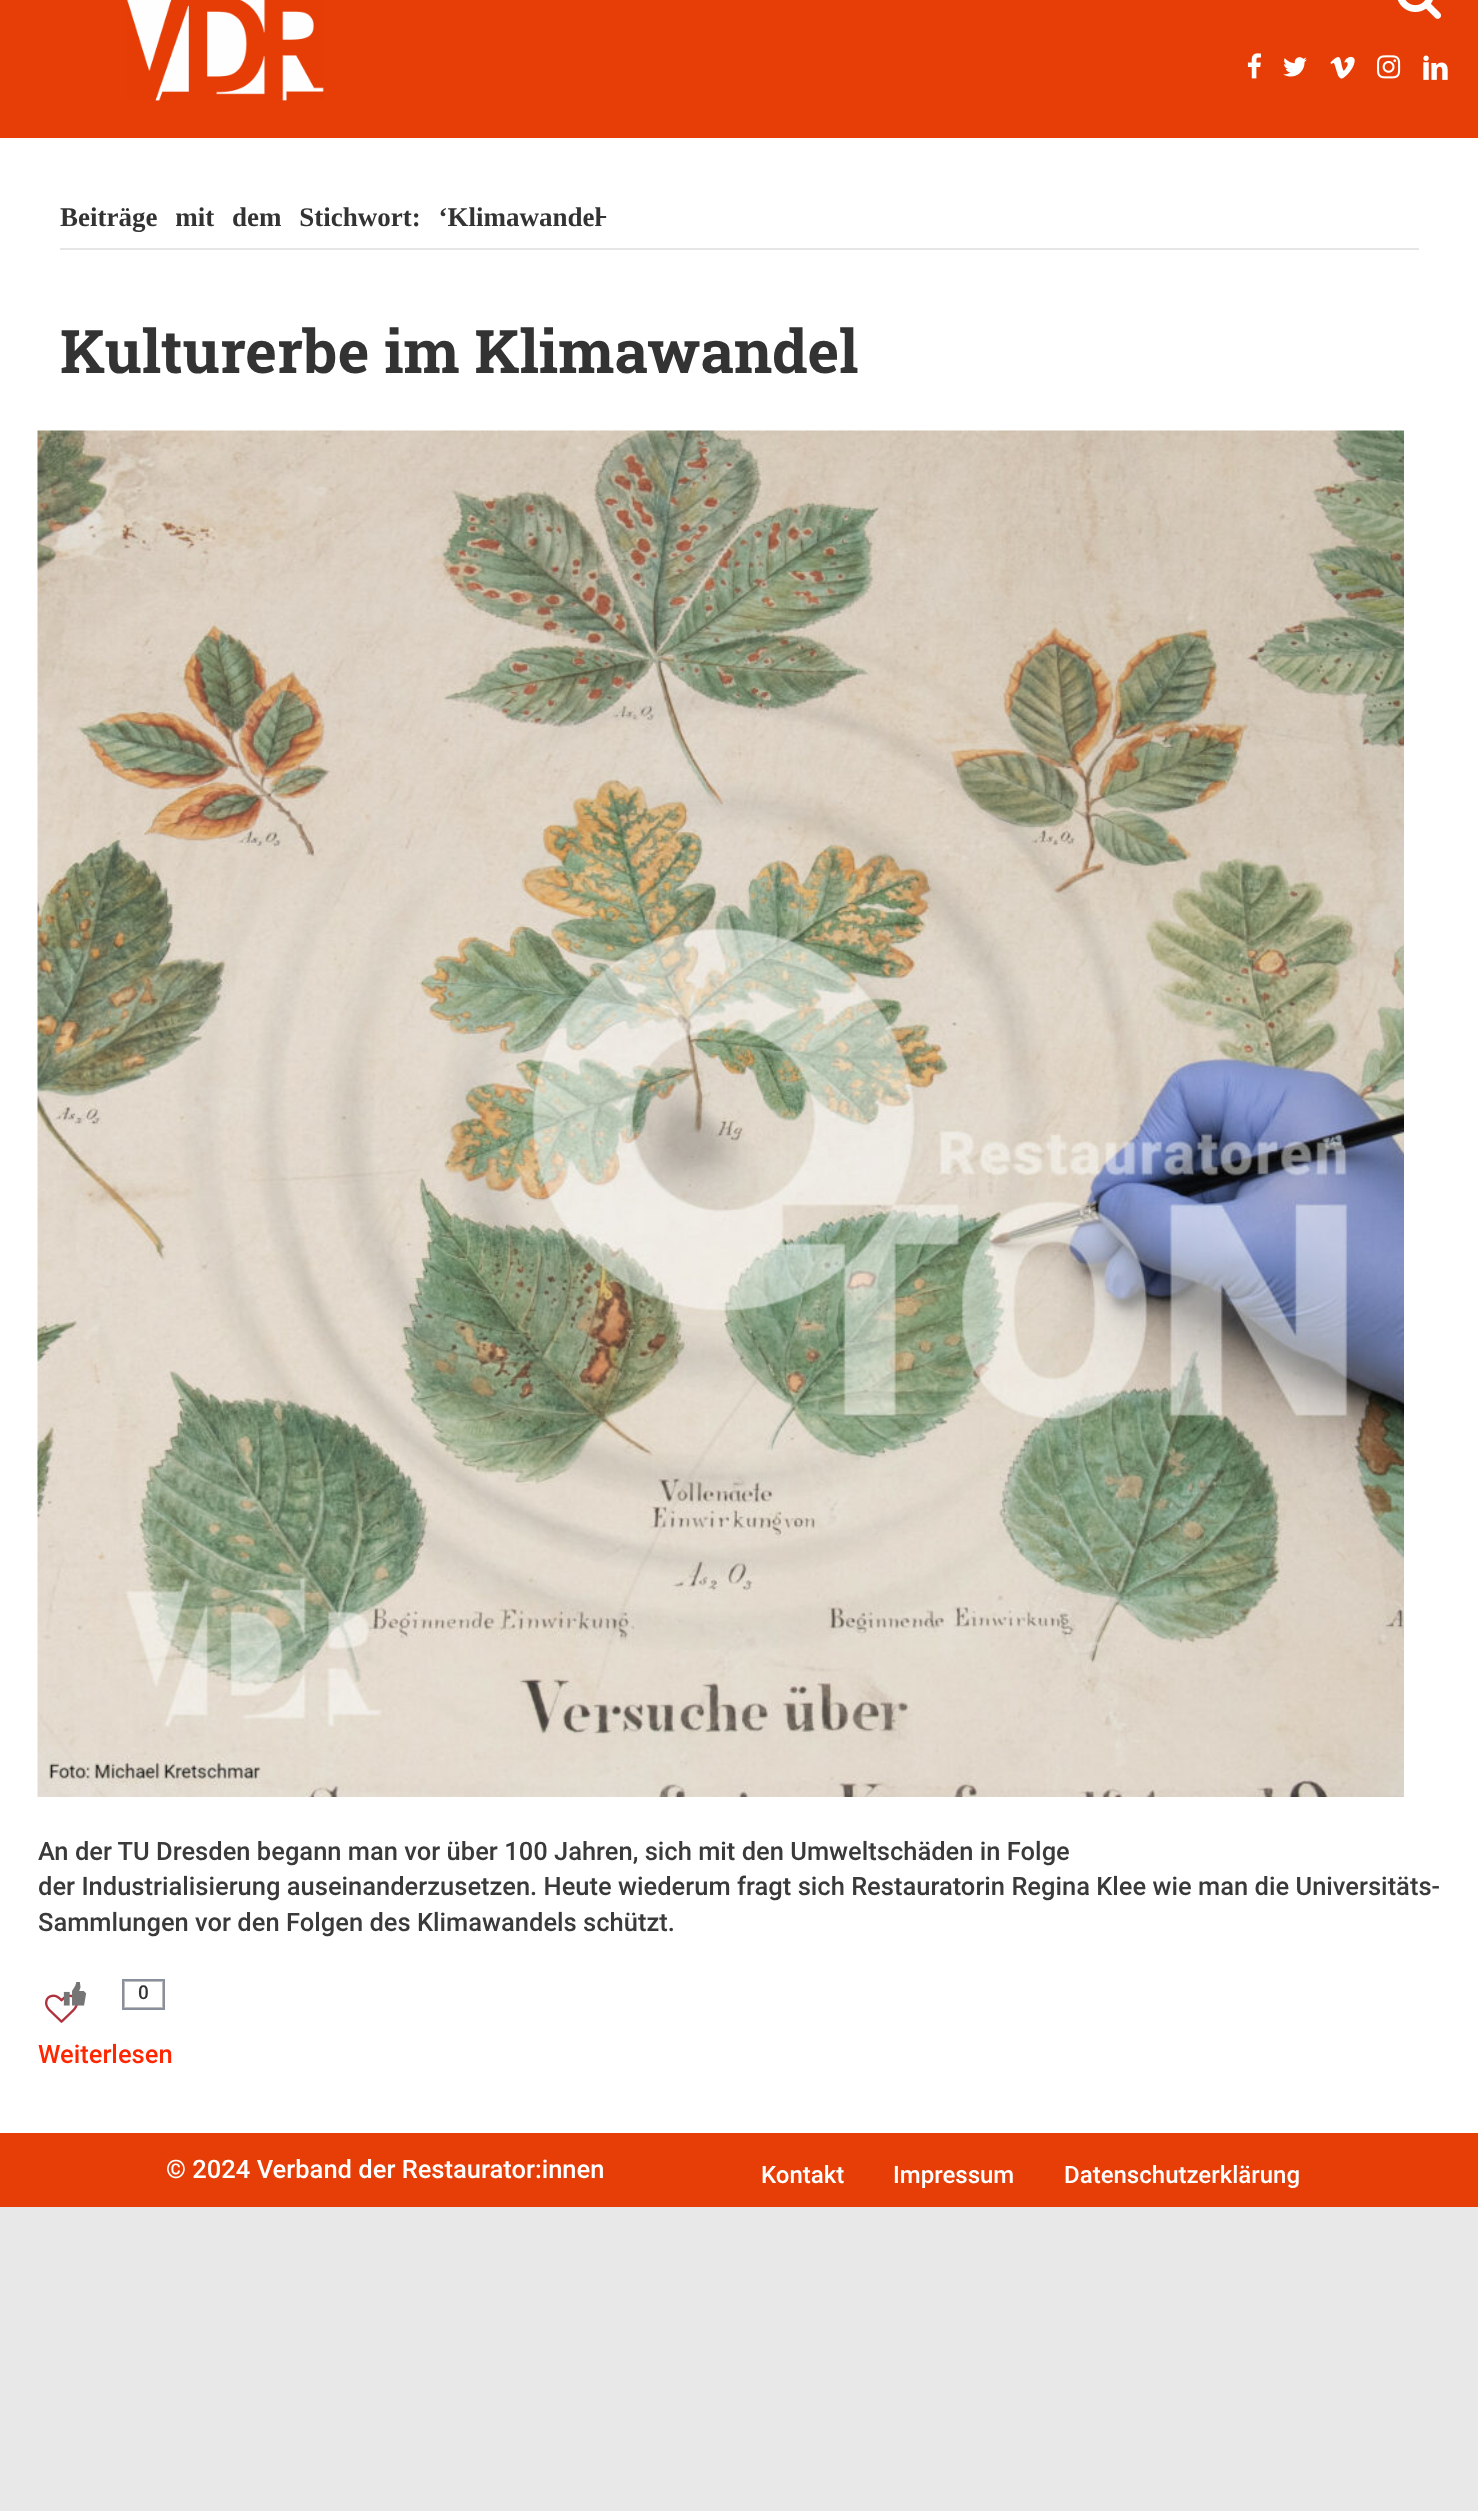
<!DOCTYPE html>
<meta charset="utf-8">
<style>body { margin: 0 } canvas { display: block }</style>
<canvas id="canvas" width="1478" height="2511"></canvas>
<script type="module">
  const canvas = document.getElementById("canvas");
  const ctx = canvas.getContext("2d");
  ctx.miterLimit = 4;
  ctx.fontKerning = "normal";
  async function loadImage(src) {
    const img = new Image();
    img.src = src;
    await img.decode();
    return img;
  }

  ctx.fillStyle = "#e8e8e8";
  ctx.fillRect(0, 0, 1478, 2511);
  ctx.fillStyle = "#e73e07";
  ctx.fillRect(0, 0, 1478, 138);
  ctx.drawImage(await loadImage("img1.png"), 127, 0, 197, 101);
  ctx.drawImage(await loadImage("img2.png"), 1397, 0, 45, 19);
  ctx.drawImage(await loadImage("img3.png"), 1247, 53, 14, 26);
  ctx.drawImage(await loadImage("img4.png"), 1283, 57, 24, 20);
  ctx.drawImage(await loadImage("img5.png"), 1330, 56, 25, 23);
  ctx.drawImage(await loadImage("img6.png"), 1377, 55, 24, 24);
  ctx.drawImage(await loadImage("img7.png"), 1423, 55, 25, 25);
  ctx.fillStyle = "#ffffff";
  ctx.fillRect(0, 138, 1478, 1995);
  ctx.fillStyle = "#e6e6e6";
  ctx.fillRect(60, 248, 1359, 2);
  ctx.wordSpacing = "11px";
  ctx.font = "bold 27px Liberation Serif";
  ctx.fillStyle = "#333333";
  ctx.fillText("Beiträge mit dem Stichwort: ‘Klimawandel̵", 60, 226);
  ctx.wordSpacing = "0px";
  ctx.font = "bold 60px Roboto Slab";
  ctx.fillText("Kulturerbe im Klimawandel", 60, 373);
  ctx.drawImage(await loadImage("img8.png"), 37, 430, 1367, 1367);
  ctx.font = "500 25.5px Roboto";
  ctx.fillStyle = "#3a3a3a";
  ctx.fillText("An der TU Dresden begann man vor über 100 Jahren, sich mit den Umweltschäden in Folge", 38, 1860);
  ctx.fillText("der Industrialisierung auseinanderzusetzen. Heute wiederum fragt sich Restauratorin Regina Klee wie man die Universitäts-", 38, 1895);
  ctx.fillText("Sammlungen vor den Folgen des Klimawandels schützt.", 38, 1931);
  ctx.drawImage(await loadImage("img10.png"), 45, 1994, 33, 29);
  ctx.drawImage(await loadImage("img9.png"), 63, 1982, 24, 24);
  ctx.strokeStyle = "#bdbdbd";
  ctx.lineWidth = 2;
  ctx.strokeRect(124, 1981, 39, 27);
  ctx.strokeStyle = "#898f9c";
  ctx.strokeRect(123, 1980, 41, 29);
  ctx.font = "500 19px Roboto";
  ctx.fillStyle = "#333333";
  ctx.fillText("0", 138, 1999);
  ctx.font = "500 25.5px Roboto";
  ctx.fillStyle = "#ff2600";
  ctx.fillText("Weiterlesen", 38, 2063);
  ctx.fillStyle = "#e73e07";
  ctx.fillRect(0, 2133, 1478, 74);
  ctx.fillStyle = "#ffffff";
  ctx.fillText("© 2024 Verband der Restaurator:innen", 166, 2178);
  ctx.font = "500 24px Roboto";
  ctx.fillText("Kontakt", 761, 2183);
  ctx.fillText("Impressum", 893, 2183);
  ctx.fillText("Datenschutzerklärung", 1064, 2183);
</script>
